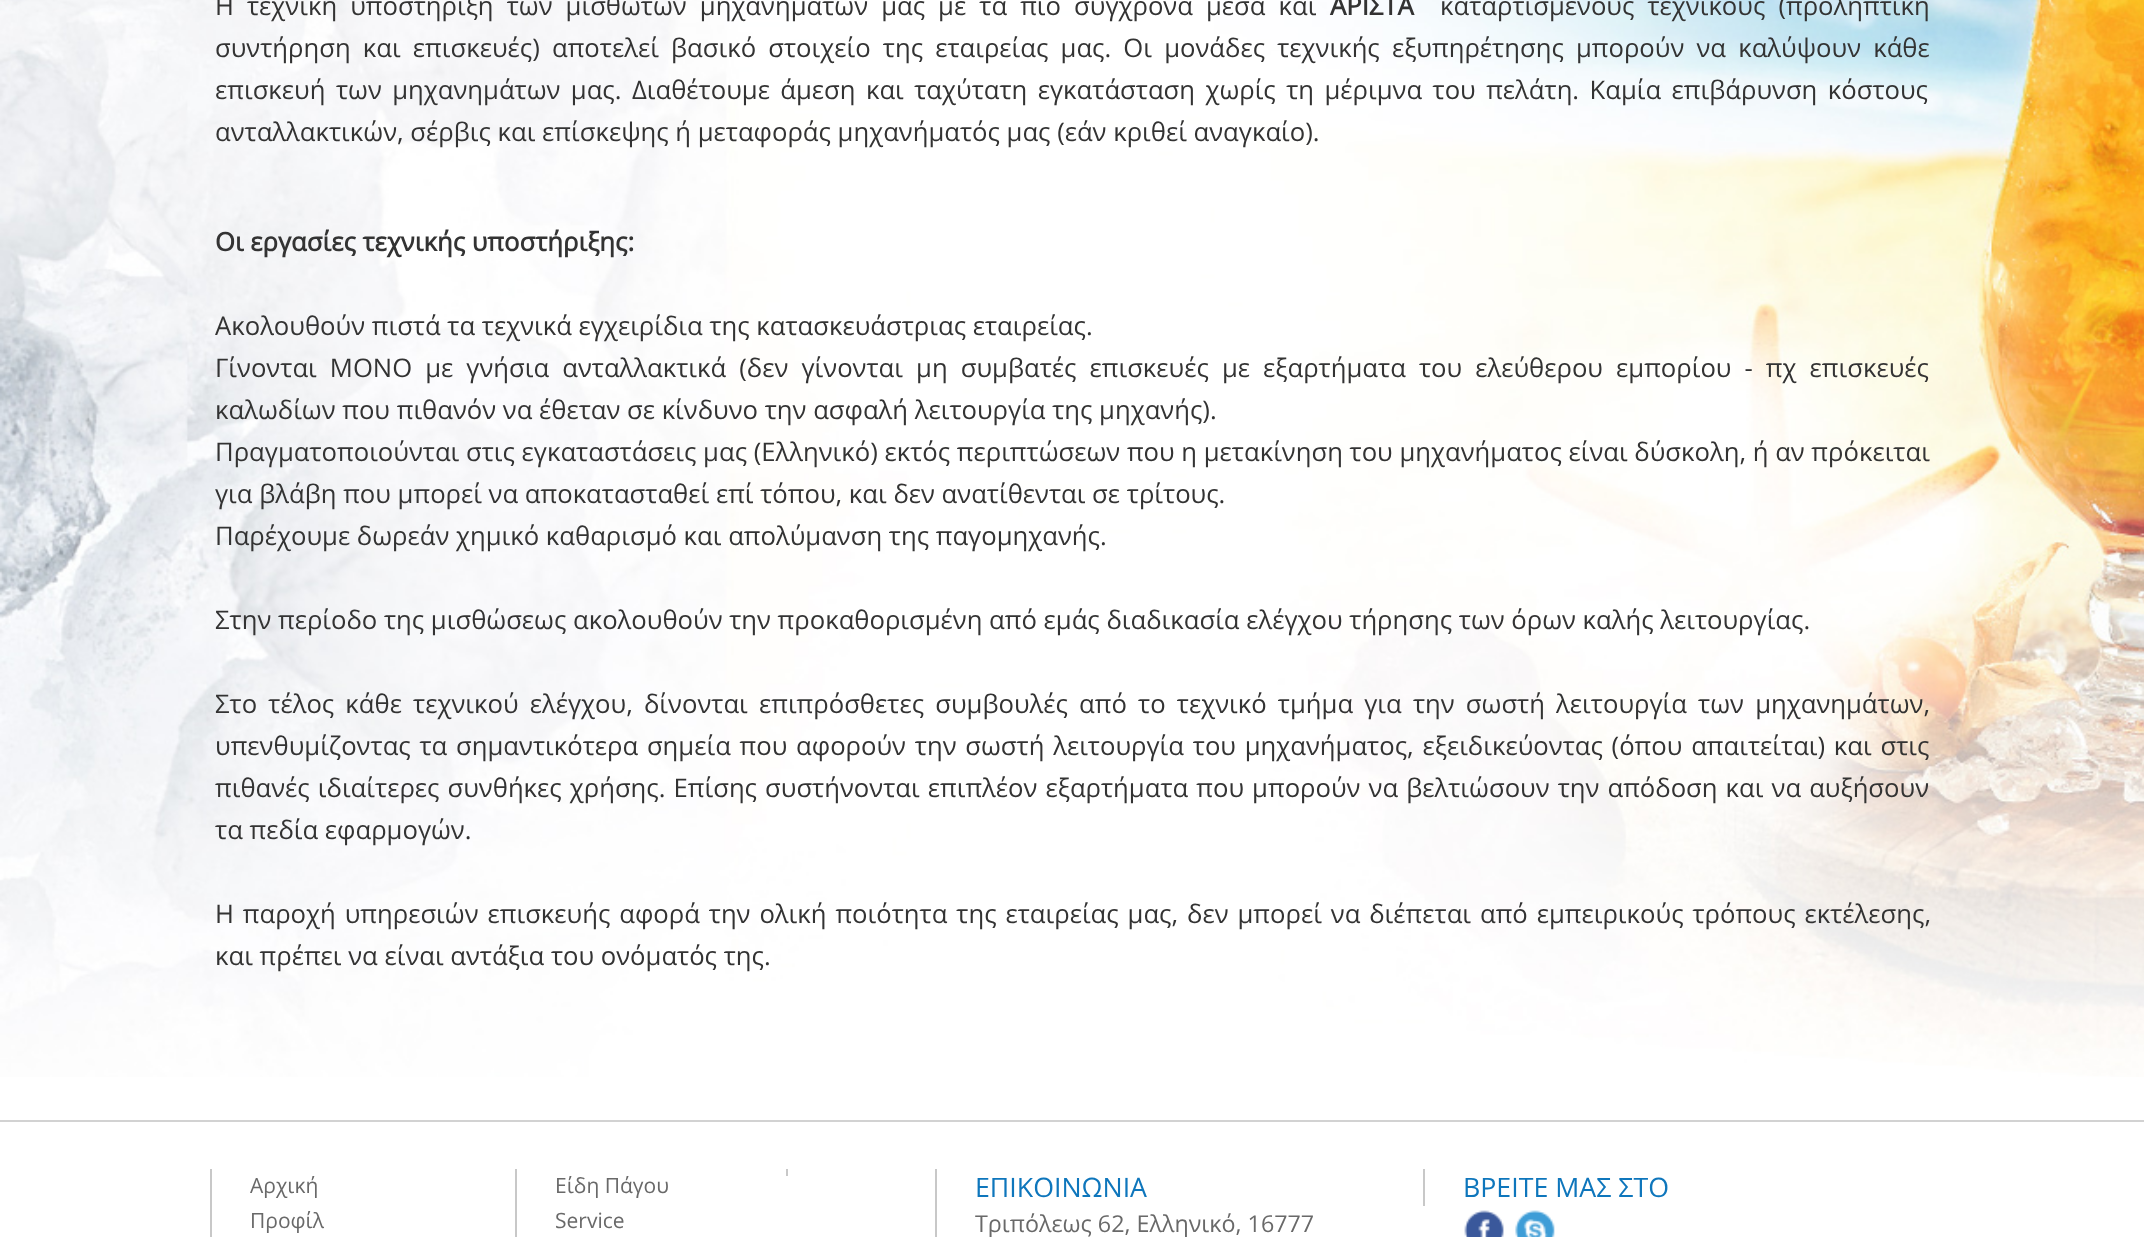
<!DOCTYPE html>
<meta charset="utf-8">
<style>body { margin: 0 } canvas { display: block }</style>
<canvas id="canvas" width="2144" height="1237"></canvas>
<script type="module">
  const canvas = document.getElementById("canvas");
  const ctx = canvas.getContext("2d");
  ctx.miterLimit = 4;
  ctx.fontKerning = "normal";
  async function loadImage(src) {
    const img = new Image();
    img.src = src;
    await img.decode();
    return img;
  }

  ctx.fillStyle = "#ffffff";
  ctx.fillRect(0, 0, 2144, 1237);
  ctx.drawImage(await loadImage("img1.png"), 0, 0, 2144, 1077);
  ctx.wordSpacing = "6.4px";
  ctx.font = "25.67px Open Sans";
  ctx.fillStyle = "#333333";
  ctx.fillText("Η τεχνική υποστήριξη των μισθωτών μηχανημάτων μας με τα πιο σύγχρονα μέσα και", 215, 15);
  ctx.wordSpacing = "0px";
  ctx.font = "bold 25.67px Open Sans";
  ctx.fillText("ΑΡΙΣΤΑ", 1330, 15);
  ctx.wordSpacing = "6.4px";
  ctx.font = "25.67px Open Sans";
  ctx.fillText("καταρτισμένους τεχνικούς (προληπτική", 1440, 15);
  ctx.wordSpacing = "5.5px";
  ctx.fillText("συντήρηση και επισκευές) αποτελεί βασικό στοιχείο της εταιρείας μας. Οι μονάδες τεχνικής εξυπηρέτησης μπορούν να καλύψουν κάθε", 215, 57);
  ctx.wordSpacing = "3.75px";
  ctx.fillText("επισκευή των μηχανημάτων μας. Διαθέτουμε άμεση και ταχύτατη εγκατάσταση χωρίς τη μέριμνα του πελάτη. Καμία επιβάρυνση κόστους", 215, 99);
  ctx.wordSpacing = "0px";
  ctx.fillText("ανταλλακτικών, σέρβις και επίσκεψης ή μεταφοράς μηχανήματός μας (εάν κριθεί αναγκαίο).", 215, 141);
  ctx.font = "bold 25.67px Open Sans";
  ctx.fillText("Οι εργασίες τεχνικής υποστήριξης:", 215, 251);
  ctx.font = "25.67px Open Sans";
  ctx.fillText("Ακολουθούν πιστά τα τεχνικά εγχειρίδια της κατασκευάστριας εταιρείας.", 215, 335);
  ctx.wordSpacing = "6.4px";
  ctx.fillText("Γίνονται ΜΟΝΟ με γνήσια ανταλλακτικά (δεν γίνονται μη συμβατές επισκευές με εξαρτήματα του ελεύθερου εμπορίου - πχ επισκευές", 215, 377);
  ctx.wordSpacing = "0px";
  ctx.fillText("καλωδίων που πιθανόν να έθεταν σε κίνδυνο την ασφαλή λειτουργία της μηχανής).", 215, 419);
  ctx.fillText("Πραγματοποιούνται στις εγκαταστάσεις μας (Ελληνικό) εκτός περιπτώσεων που η μετακίνηση του μηχανήματος είναι δύσκολη, ή αν πρόκειται", 215, 461);
  ctx.fillText("για βλάβη που μπορεί να αποκατασταθεί επί τόπου, και δεν ανατίθενται σε τρίτους.", 215, 503);
  ctx.fillText("Παρέχουμε δωρεάν χημικό καθαρισμό και απολύμανση της παγομηχανής.", 215, 545);
  ctx.fillText("Στην περίοδο της μισθώσεως ακολουθούν την προκαθορισμένη από εμάς διαδικασία ελέγχου τήρησης των όρων καλής λειτουργίας.", 215, 629);
  ctx.wordSpacing = "4.5px";
  ctx.fillText("Στο τέλος κάθε τεχνικού ελέγχου, δίνονται επιπρόσθετες συμβουλές από το τεχνικό τμήμα για την σωστή λειτουργία των μηχανημάτων,", 215, 713);
  ctx.wordSpacing = "2.1px";
  ctx.fillText("υπενθυμίζοντας τα σημαντικότερα σημεία που αφορούν την σωστή λειτουργία του μηχανήματος, εξειδικεύοντας (όπου απαιτείται) και στις", 215, 755);
  ctx.wordSpacing = "1.4px";
  ctx.fillText("πιθανές ιδιαίτερες συνθήκες χρήσης. Επίσης συστήνονται επιπλέον εξαρτήματα που μπορούν να βελτιώσουν την απόδοση και να αυξήσουν", 215, 797);
  ctx.wordSpacing = "0px";
  ctx.fillText("τα πεδία εφαρμογών.", 215, 839);
  ctx.wordSpacing = "2.25px";
  ctx.fillText("Η παροχή υπηρεσιών επισκευής αφορά την ολική ποιότητα της εταιρείας μας, δεν μπορεί να διέπεται από εμπειρικούς τρόπους εκτέλεσης,", 215, 923);
  ctx.wordSpacing = "0px";
  ctx.fillText("και πρέπει να είναι αντάξια του ονόματός της.", 215, 965);
  ctx.fillStyle = "#d2d2d2";
  ctx.fillRect(0, 1120, 2144, 2);
  ctx.fillStyle = "#c8c8c8";
  ctx.fillRect(786, 1169, 2, 7);
  ctx.fillRect(210, 1169, 2, 68);
  ctx.font = "21px Open Sans";
  ctx.fillStyle = "#696969";
  ctx.fillText("Αρχική", 250, 1193);
  ctx.fillText("Προφίλ", 250, 1228);
  ctx.fillStyle = "#c8c8c8";
  ctx.fillRect(515, 1169, 2, 68);
  ctx.fillStyle = "#696969";
  ctx.fillText("Είδη Πάγου", 555, 1193);
  ctx.fillText("Service", 555, 1228);
  ctx.fillStyle = "#c8c8c8";
  ctx.fillRect(935, 1169, 2, 68);
  ctx.font = "26.75px Open Sans";
  ctx.fillStyle = "#0e76bc";
  ctx.fillText("ΕΠΙΚΟΙΝΩΝΙΑ", 975, 1197);
  ctx.font = "23.3px Open Sans";
  ctx.fillStyle = "#696969";
  ctx.fillText("Τριπόλεως 62, Ελληνικό, 16777", 975, 1232);
  ctx.fillStyle = "#c8c8c8";
  ctx.fillRect(1423, 1169, 2, 37);
  ctx.font = "26.75px Open Sans";
  ctx.fillStyle = "#0e76bc";
  ctx.fillText("ΒΡΕΙΤΕ ΜΑΣ ΣΤΟ", 1463, 1197);
  ctx.drawImage(await loadImage("img2.png"), 1464, 1210, 40, 27);
  ctx.drawImage(await loadImage("img3.png"), 1515, 1210, 40, 27);
</script>
